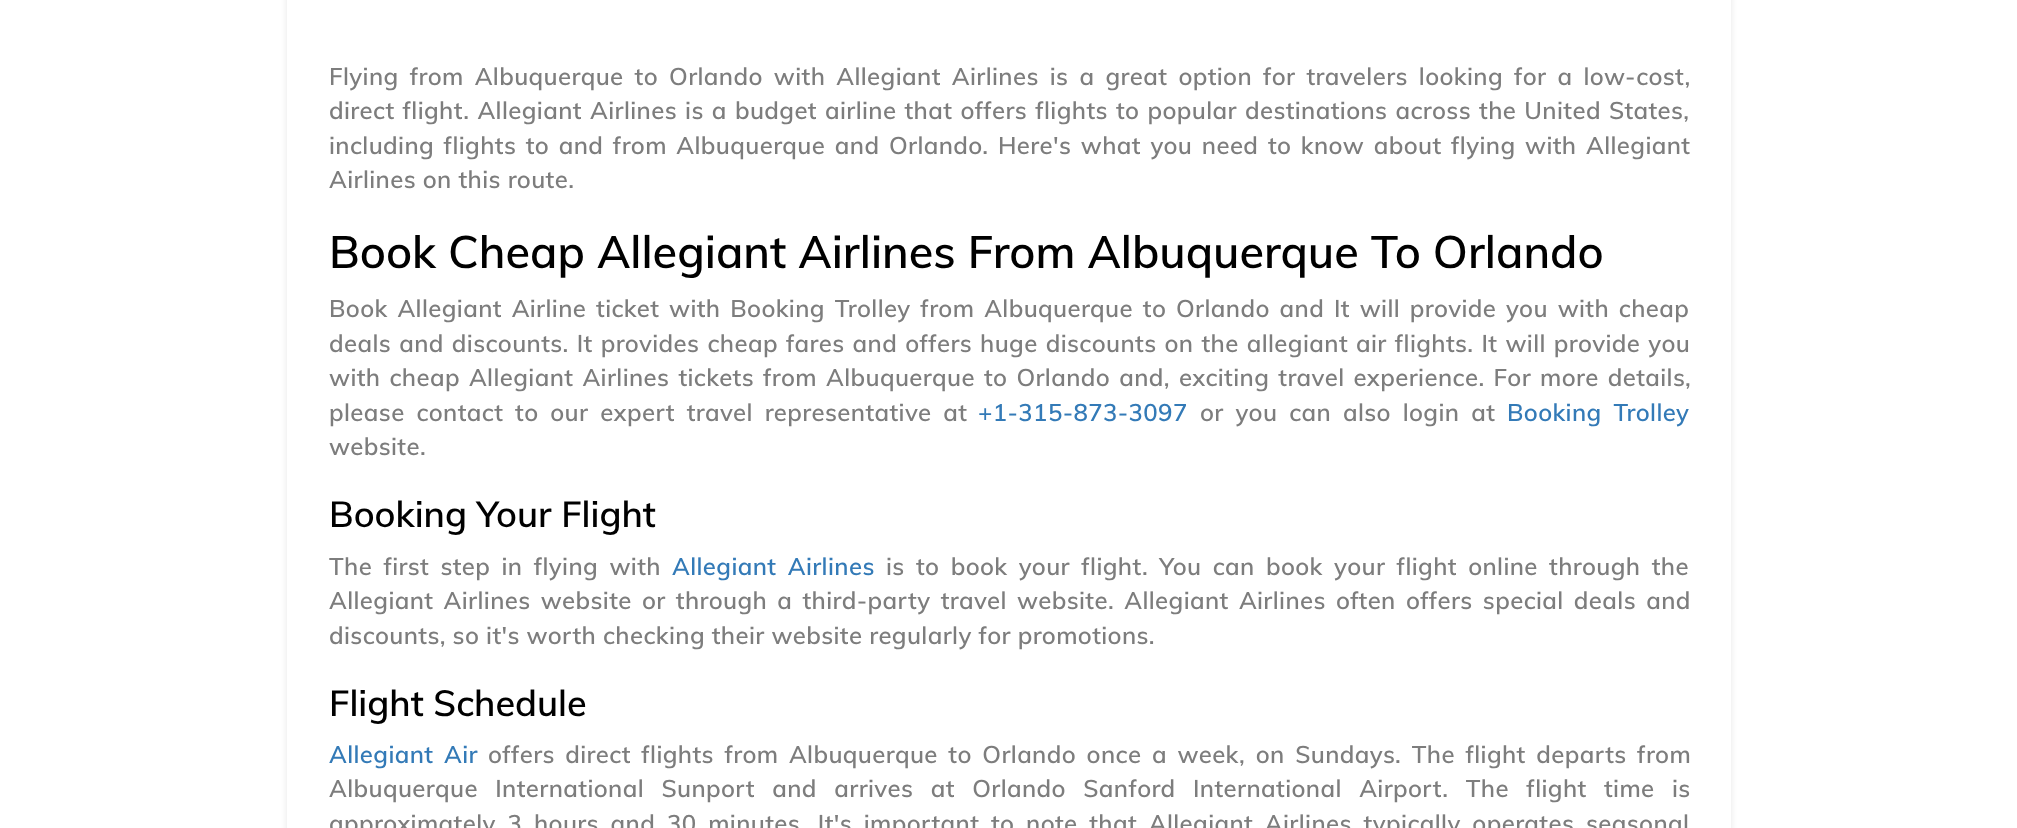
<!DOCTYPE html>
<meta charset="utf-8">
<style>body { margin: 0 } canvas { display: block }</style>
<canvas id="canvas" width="2017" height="828"></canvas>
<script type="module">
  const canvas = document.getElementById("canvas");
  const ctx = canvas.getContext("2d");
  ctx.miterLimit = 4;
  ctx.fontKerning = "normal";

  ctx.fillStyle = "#ffffff";
  ctx.fillRect(0, 0, 2017, 828);
  ctx.save();
  ctx.beginPath();
  ctx.moveTo(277, 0);
  ctx.lineTo(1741, 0);
  ctx.lineTo(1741, 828);
  ctx.lineTo(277, 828);
  ctx.closePath();
  ctx.moveTo(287, -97);
  ctx.lineTo(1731, -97);
  ctx.lineTo(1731, 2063);
  ctx.lineTo(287, 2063);
  ctx.closePath();
  ctx.clip("evenodd");
  ctx.fillStyle = "rgba(0, 0, 0, 0.1)";
  ctx.filter = "blur(3px)";
  ctx.beginPath();
  ctx.rect(287, -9, 1444, 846);
  ctx.fill();
  ctx.filter = "none";
  ctx.restore();
  ctx.letterSpacing = "0.38px";
  ctx.wordSpacing = "4.25px";
  ctx.font = "600 24px Muli";
  ctx.fillStyle = "#7d7d7d";
  ctx.fillText("Flying from Albuquerque to Orlando with Allegiant Airlines is a great option for travelers looking for a low-cost,", 329, 85);
  ctx.wordSpacing = "1.3px";
  ctx.fillText("direct flight. Allegiant Airlines is a budget airline that offers flights to popular destinations across the United States,", 329, 119);
  ctx.wordSpacing = "2.75px";
  ctx.fillText("including flights to and from Albuquerque and Orlando. Here's what you need to know about flying with Allegiant", 329, 154);
  ctx.wordSpacing = "0px";
  ctx.fillText("Airlines on this route.", 329, 188);
  ctx.letterSpacing = "0px";
  ctx.font = "600 45px Muli";
  ctx.fillStyle = "#000000";
  ctx.fillText("Book Cheap Allegiant Airlines From Albuquerque To Orlando", 329, 268);
  ctx.letterSpacing = "0.38px";
  ctx.wordSpacing = "3px";
  ctx.font = "600 24px Muli";
  ctx.fillStyle = "#7d7d7d";
  ctx.fillText("Book Allegiant Airline ticket with Booking Trolley from Albuquerque to Orlando and It will provide you with cheap", 329, 317);
  ctx.wordSpacing = "1.25px";
  ctx.fillText("deals and discounts. It provides cheap fares and offers huge discounts on the allegiant air flights. It will provide you", 329, 352);
  ctx.wordSpacing = "2.25px";
  ctx.fillText("with cheap Allegiant Airlines tickets from Albuquerque to Orlando and, exciting travel experience. For more details,", 329, 386);
  ctx.wordSpacing = "5px";
  ctx.fillText("please contact to our expert travel representative at", 329, 421);
  ctx.wordSpacing = "0px";
  ctx.fillStyle = "#337ab7";
  ctx.fillText("+1-315-873-3097", 978, 421);
  ctx.wordSpacing = "5px";
  ctx.fillStyle = "#7d7d7d";
  ctx.fillText("or you can also login at", 1200, 421);
  ctx.fillStyle = "#337ab7";
  ctx.fillText("Booking Trolley", 1507, 421);
  ctx.wordSpacing = "0px";
  ctx.fillStyle = "#7d7d7d";
  ctx.fillText("website.", 329, 455);
  ctx.letterSpacing = "0px";
  ctx.font = "600 36px Muli";
  ctx.fillStyle = "#000000";
  ctx.fillText("Booking Your Flight", 329, 527);
  ctx.letterSpacing = "0.38px";
  ctx.wordSpacing = "4.5px";
  ctx.font = "600 24px Muli";
  ctx.fillStyle = "#7d7d7d";
  ctx.fillText("The first step in flying with", 329, 575);
  ctx.fillStyle = "#337ab7";
  ctx.fillText("Allegiant Airlines", 672, 575);
  ctx.fillStyle = "#7d7d7d";
  ctx.fillText("is to book your flight. You can book your flight online through the", 886, 575);
  ctx.wordSpacing = "3.4px";
  ctx.fillText("Allegiant Airlines website or through a third-party travel website. Allegiant Airlines often offers special deals and", 329, 609);
  ctx.wordSpacing = "0px";
  ctx.fillText("discounts, so it's worth checking their website regularly for promotions.", 329, 644);
  ctx.letterSpacing = "0px";
  ctx.font = "600 36px Muli";
  ctx.fillStyle = "#000000";
  ctx.fillText("Flight Schedule", 329, 716);
  ctx.letterSpacing = "0.38px";
  ctx.wordSpacing = "3.75px";
  ctx.font = "600 24px Muli";
  ctx.fillStyle = "#337ab7";
  ctx.fillText("Allegiant Air", 329, 763);
  ctx.fillStyle = "#7d7d7d";
  ctx.fillText("offers direct flights from Albuquerque to Orlando once a week, on Sundays. The flight departs from", 488, 763);
  ctx.wordSpacing = "10.6px";
  ctx.fillText("Albuquerque International Sunport and arrives at Orlando Sanford International Airport. The flight time is", 329, 797);
  ctx.wordSpacing = "4.9px";
  ctx.fillText("approximately 3 hours and 30 minutes. It's important to note that Allegiant Airlines typically operates seasonal", 329, 832);
</script>
